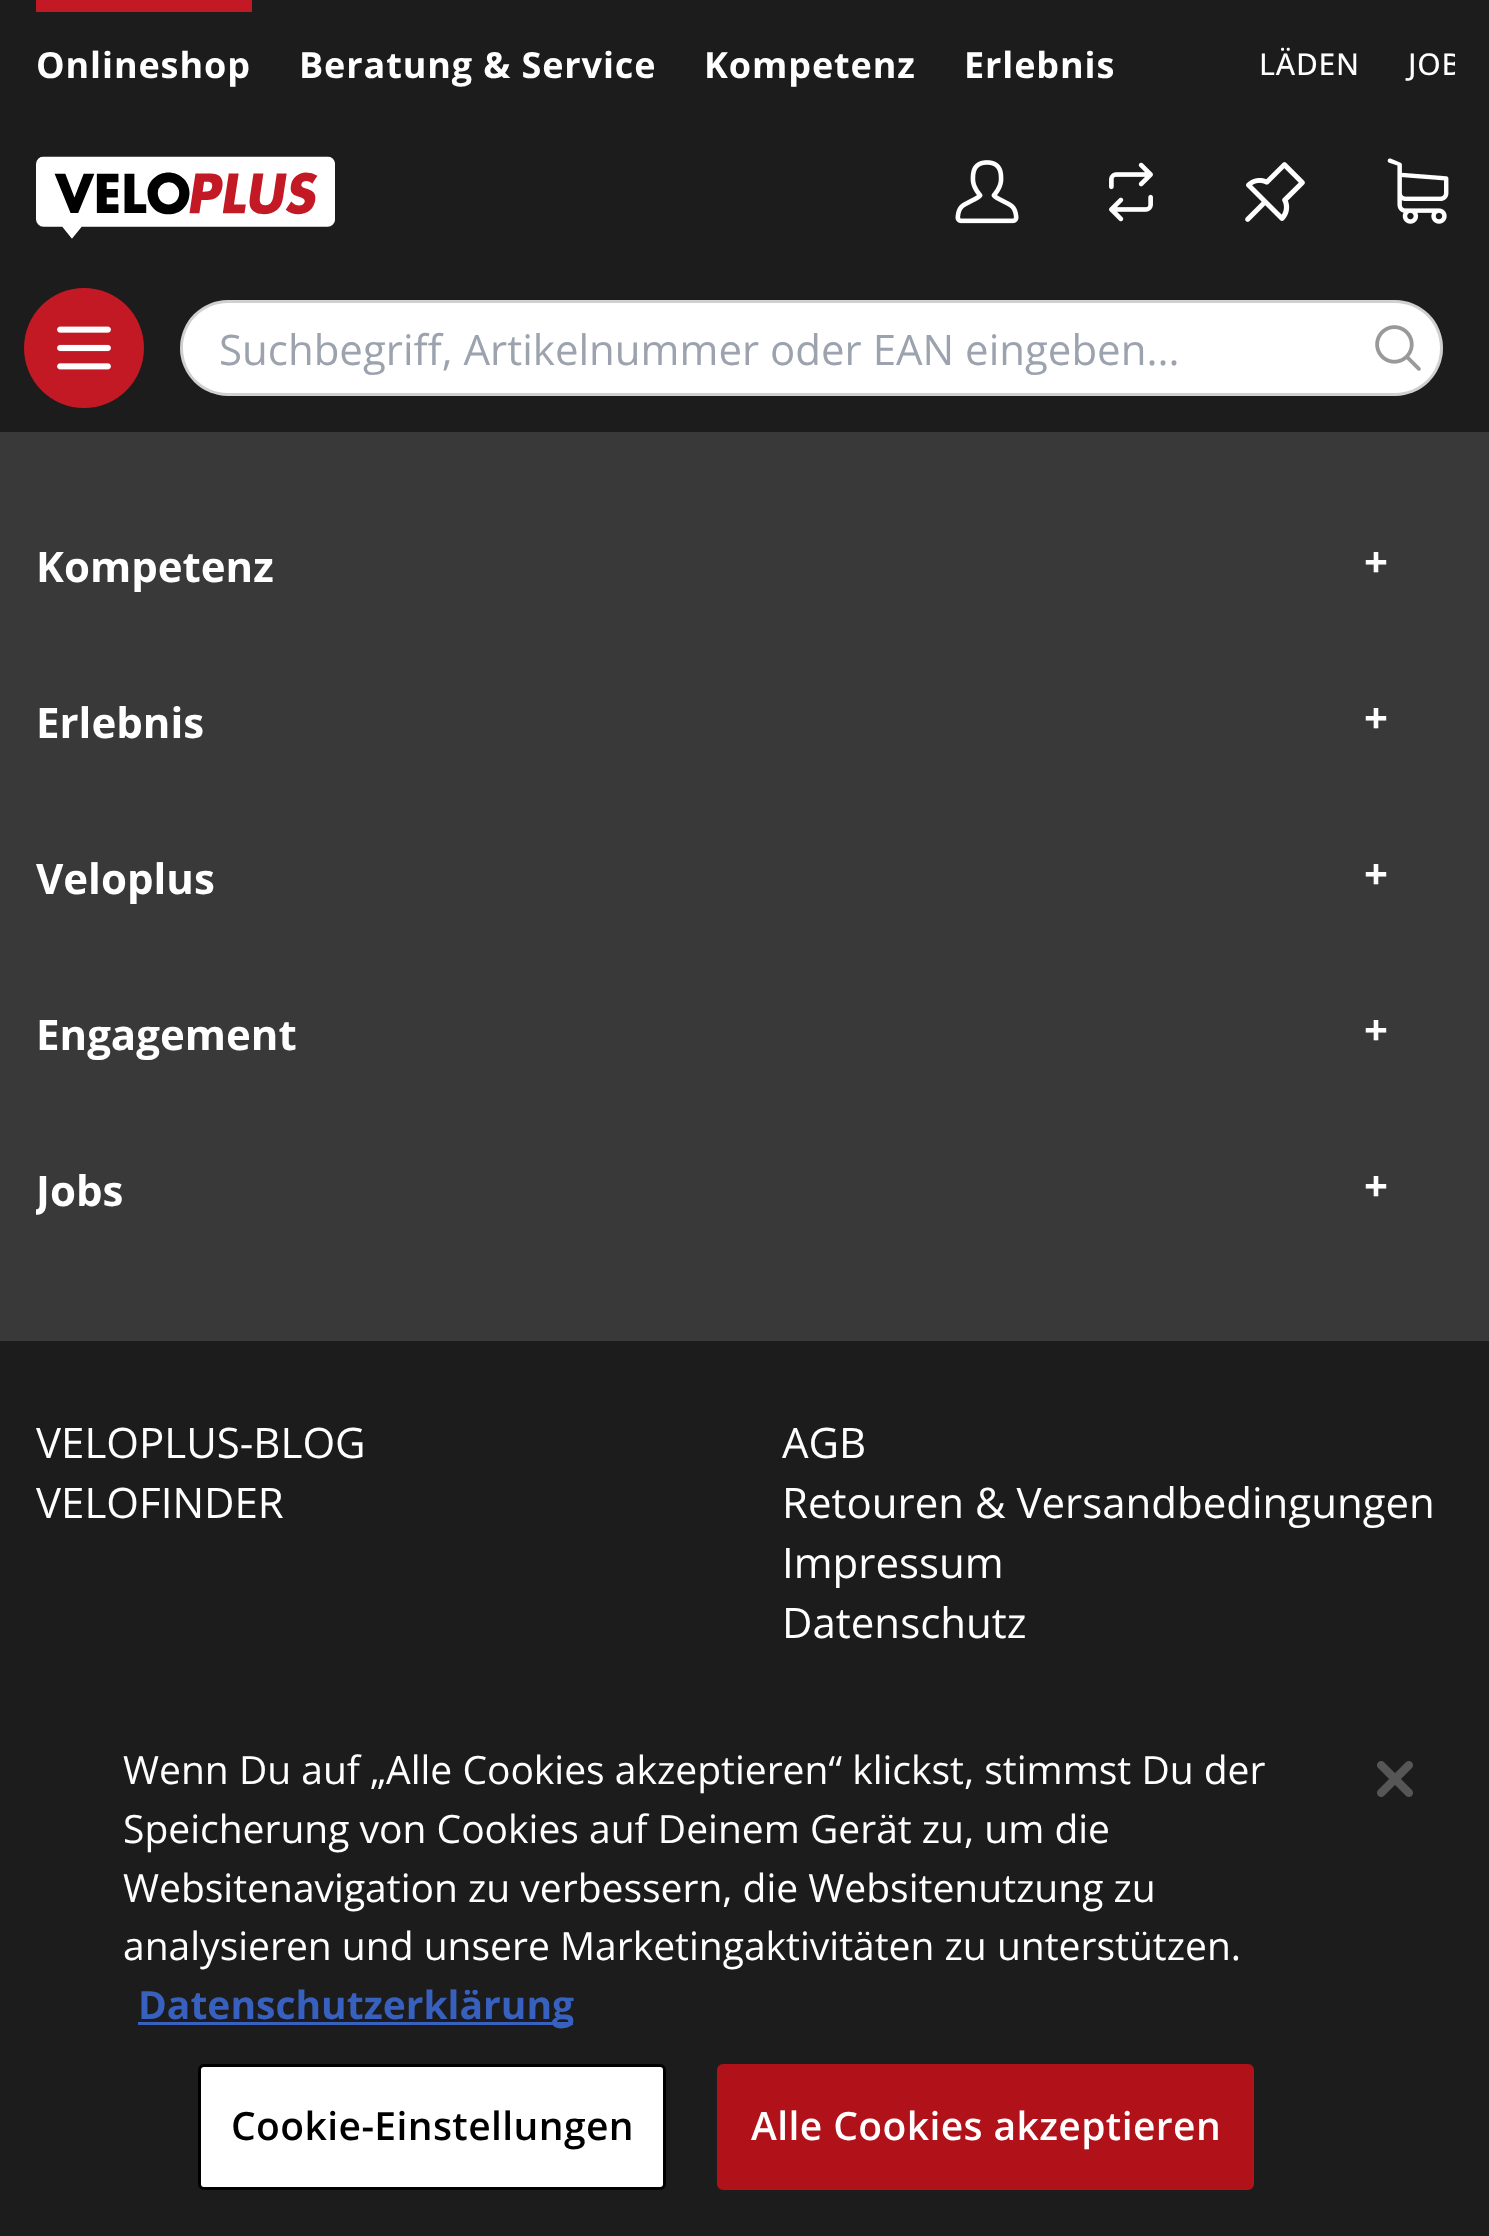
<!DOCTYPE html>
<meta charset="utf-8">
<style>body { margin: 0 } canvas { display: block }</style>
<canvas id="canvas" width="1489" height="2236"></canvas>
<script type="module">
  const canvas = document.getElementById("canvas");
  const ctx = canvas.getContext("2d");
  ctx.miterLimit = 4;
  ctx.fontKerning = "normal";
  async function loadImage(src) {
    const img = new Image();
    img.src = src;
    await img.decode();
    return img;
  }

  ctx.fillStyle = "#1c1c1c";
  ctx.fillRect(0, 0, 1489, 2236);
  ctx.fillStyle = "#c31924";
  ctx.fillRect(36, 0, 216, 12);
  ctx.letterSpacing = "0.9px";
  ctx.font = "bold 36px Open Sans";
  ctx.fillStyle = "#ffffff";
  ctx.fillText("Onlineshop", 36, 78);
  ctx.fillText("Beratung & Service", 299, 78);
  ctx.fillText("Kompetenz", 704, 78);
  ctx.fillText("Erlebnis", 964, 78);
  ctx.letterSpacing = "0.75px";
  ctx.font = "500 30px Open Sans";
  ctx.fillText("LÄDEN", 1259, 75);
  ctx.save();
  ctx.beginPath();
  ctx.rect(36, 0, 1419, 120);
  ctx.clip();
  ctx.fillText("JOB", 1408, 75);
  ctx.restore();
  ctx.drawImage(await loadImage("img1.png"), 36, 156, 299, 83);
  ctx.drawImage(await loadImage("img2.png"), 955, 160, 64, 64);
  ctx.drawImage(await loadImage("img3.png"), 1109, 162, 44, 60);
  ctx.drawImage(await loadImage("img4.png"), 1245, 162, 60, 60);
  ctx.drawImage(await loadImage("img5.png"), 1387, 158, 62, 66);
  ctx.fillStyle = "#c31924";
  ctx.beginPath();
  ctx.arc(84, 348, 60, 0, Math.PI * 2);
  ctx.fill();
  ctx.drawImage(await loadImage("img6.png"), 57, 326, 54, 44);
  ctx.fillStyle = "#ffffff";
  ctx.beginPath();
  ctx.roundRect(180, 300, 1176, 96, [48, 0, 0, 48]);
  ctx.fill();
  ctx.fillStyle = "rgba(22, 22, 22, 0.2)";
  ctx.beginPath();
  ctx.moveTo(228, 300);
  ctx.lineTo(1356, 300);
  ctx.lineTo(1356, 396);
  ctx.lineTo(228, 396);
  ctx.bezierCurveTo(201, 396, 180, 375, 180, 348);
  ctx.bezierCurveTo(180, 321, 201, 300, 228, 300);
  ctx.closePath();
  ctx.moveTo(228, 303);
  ctx.lineTo(1356, 303);
  ctx.lineTo(1356, 393);
  ctx.lineTo(228, 393);
  ctx.bezierCurveTo(203, 393, 183, 373, 183, 348);
  ctx.bezierCurveTo(183, 323, 203, 303, 228, 303);
  ctx.closePath();
  ctx.fill("evenodd");
  ctx.letterSpacing = "0px";
  ctx.font = "42px Open Sans";
  ctx.fillStyle = "#9ca3af";
  ctx.fillText("Suchbegriff, Artikelnummer oder EAN eingeben...", 219, 365);
  ctx.fillStyle = "#ffffff";
  ctx.beginPath();
  ctx.roundRect(1353, 300, 90, 96, [0, 48, 48, 0]);
  ctx.fill();
  ctx.fillStyle = "rgba(22, 22, 22, 0.2)";
  ctx.beginPath();
  ctx.moveTo(1353, 300);
  ctx.lineTo(1395, 300);
  ctx.bezierCurveTo(1422, 300, 1443, 321, 1443, 348);
  ctx.bezierCurveTo(1443, 375, 1422, 396, 1395, 396);
  ctx.lineTo(1353, 396);
  ctx.closePath();
  ctx.moveTo(1353, 303);
  ctx.lineTo(1395, 303);
  ctx.bezierCurveTo(1420, 303, 1440, 323, 1440, 348);
  ctx.bezierCurveTo(1440, 373, 1420, 393, 1395, 393);
  ctx.lineTo(1353, 393);
  ctx.closePath();
  ctx.fill("evenodd");
  ctx.drawImage(await loadImage("img7.png"), 1375, 325, 46, 46);
  ctx.fillStyle = "#393939";
  ctx.fillRect(0, 432, 1489, 909);
  ctx.font = "bold 42px Open Sans";
  ctx.fillStyle = "#ffffff";
  ctx.fillText("Kompetenz", 36, 582);
  ctx.fillText("+", 1364, 577);
  ctx.fillText("Erlebnis", 36, 738);
  ctx.fillText("+", 1364, 733);
  ctx.fillText("Veloplus", 36, 894);
  ctx.fillText("+", 1364, 889);
  ctx.fillText("Engagement", 36, 1050);
  ctx.fillText("+", 1364, 1045);
  ctx.save();
  ctx.beginPath();
  ctx.roundRect(36, 1113, 1419, 156, 15);
  ctx.clip();
  ctx.fillText("Jobs", 36, 1206);
  ctx.restore();
  ctx.fillText("+", 1364, 1201);
  ctx.font = "42px Open Sans";
  ctx.fillText("VELOPLUS-BLOG", 36, 1458);
  ctx.fillText("VELOFINDER", 36, 1518);
  ctx.fillText("AGB", 782, 1458);
  ctx.fillText("Retouren & Versandbedingungen", 782, 1518);
  ctx.fillText("Impressum", 782, 1578);
  ctx.fillText("Datenschutz", 782, 1638);
  ctx.font = "39px Open Sans";
  ctx.fillText("Wenn Du auf „Alle Cookies akzeptieren“ klickst, stimmst Du der", 123, 1784);
  ctx.fillText("Speicherung von Cookies auf Deinem Gerät zu, um die", 123, 1843);
  ctx.fillText("Websitenavigation zu verbessern, die Websitenutzung zu", 123, 1902);
  ctx.fillText("analysieren und unsere Marketingaktivitäten zu unterstützen.", 123, 1960);
  ctx.fillStyle = "#3860be";
  ctx.fillRect(138, 2022, 435, 3);
  ctx.font = "bold 39px Open Sans";
  ctx.fillText("Datenschutzerklärung", 138, 2019);
  ctx.fillStyle = "#ffffff";
  ctx.beginPath();
  ctx.roundRect(199.5, 2065.5, 465, 123, 4.5);
  ctx.fill();
  ctx.strokeStyle = "#000000";
  ctx.lineWidth = 3;
  ctx.stroke();
  ctx.letterSpacing = "0.4px";
  ctx.font = "600 39px Open Sans";
  ctx.fillStyle = "#000000";
  ctx.fillText("Cookie-Einstellungen", 231, 2140);
  ctx.fillStyle = "#b11219";
  ctx.beginPath();
  ctx.roundRect(718.5, 2065.5, 534, 123, 4.5);
  ctx.fill();
  ctx.strokeStyle = "#b11219";
  ctx.stroke();
  ctx.fillStyle = "#ffffff";
  ctx.fillText("Alle Cookies akzeptieren", 751, 2140);
  ctx.drawImage(await loadImage("img8.png"), 1377, 1761, 36, 36);
</script>
